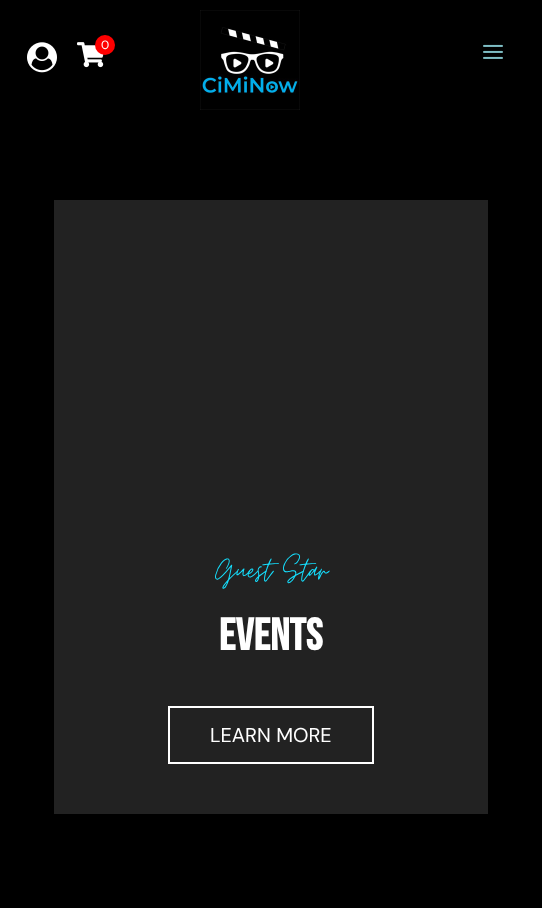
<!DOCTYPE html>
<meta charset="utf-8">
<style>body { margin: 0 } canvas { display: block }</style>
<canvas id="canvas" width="542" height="908"></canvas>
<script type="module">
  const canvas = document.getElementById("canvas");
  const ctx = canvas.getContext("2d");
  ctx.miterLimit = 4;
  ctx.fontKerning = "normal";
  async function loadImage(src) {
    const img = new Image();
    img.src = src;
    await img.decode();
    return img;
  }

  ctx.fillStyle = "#000000";
  ctx.fillRect(0, 0, 542, 908);
  ctx.drawImage(await loadImage("img1.png"), 27, 42, 30, 31);
  ctx.drawImage(await loadImage("img2.png"), 77, 42, 27, 26);
  ctx.fillStyle = "#ff0000";
  ctx.beginPath();
  ctx.arc(105, 45, 10, 0, Math.PI * 2);
  ctx.fill();
  ctx.font = "12px DM Sans";
  ctx.fillStyle = "#ffffff";
  ctx.fillText("0", 101, 49);
  ctx.drawImage(await loadImage("img3.png"), 200, 10, 100, 100);
  ctx.drawImage(await loadImage("img4.png"), 483, 44, 20, 15);
  ctx.fillStyle = "#222222";
  ctx.fillRect(54, 200, 434, 614);
  ctx.font = "37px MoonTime";
  ctx.fillStyle = "#15defd";
  ctx.fillText("Guest Star", 215, 579);
  ctx.font = "bold 45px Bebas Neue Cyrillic";
  ctx.fillStyle = "#ffffff";
  ctx.fillText("Events", 219, 650);
  ctx.strokeStyle = "#ffffff";
  ctx.lineWidth = 2;
  ctx.strokeRect(169, 707, 204, 56);
  ctx.font = "20px DM Sans";
  ctx.fillText("LEARN MORE", 210, 742);
</script>
